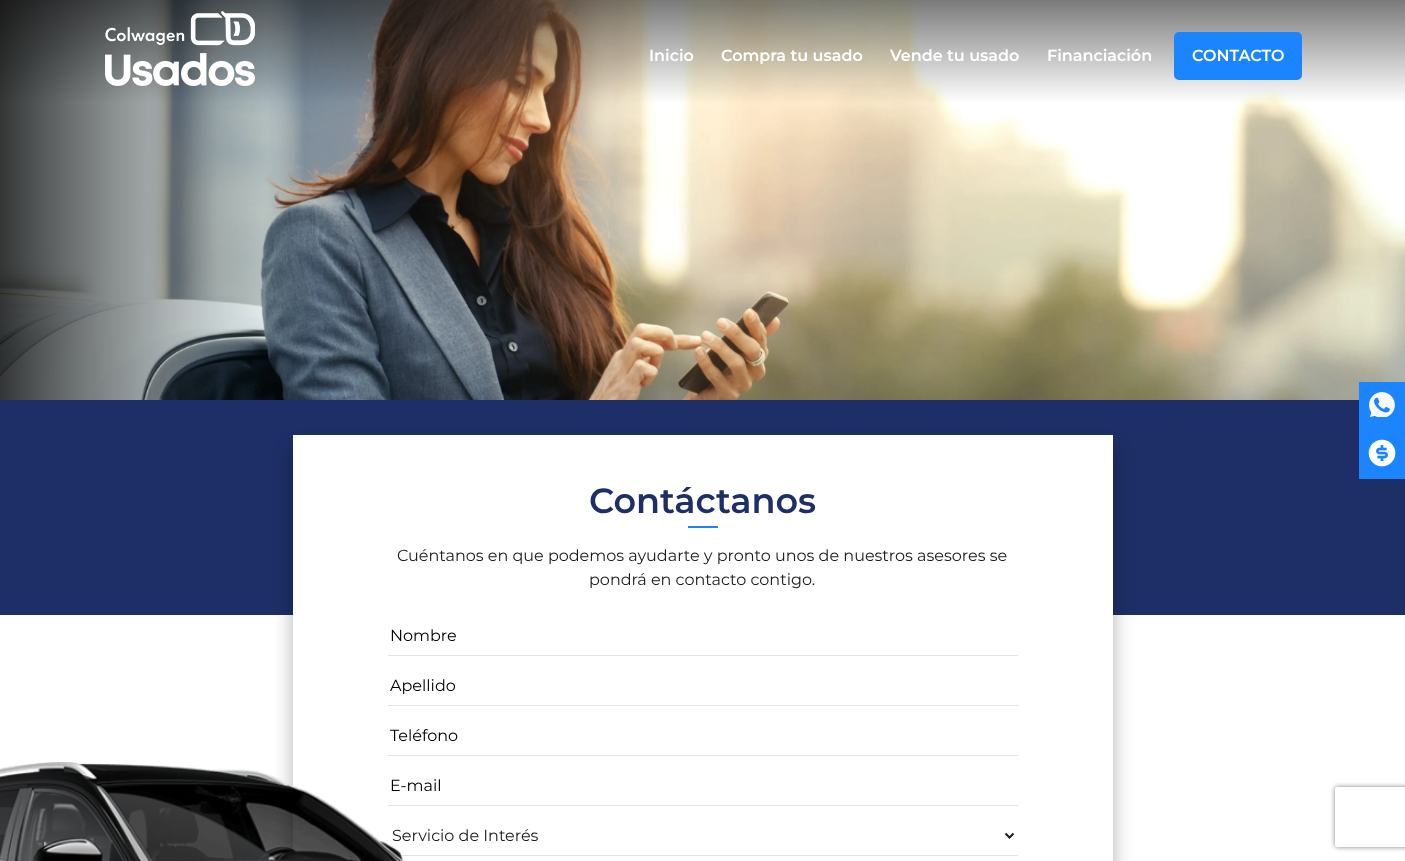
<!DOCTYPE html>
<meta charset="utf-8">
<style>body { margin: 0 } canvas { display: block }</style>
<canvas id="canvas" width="1405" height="861"></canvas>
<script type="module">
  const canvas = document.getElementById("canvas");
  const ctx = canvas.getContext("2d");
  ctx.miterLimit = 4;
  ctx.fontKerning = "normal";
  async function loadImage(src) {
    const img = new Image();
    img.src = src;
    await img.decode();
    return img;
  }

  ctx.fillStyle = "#ffffff";
  ctx.fillRect(0, 0, 1405, 861);
  ctx.drawImage(await loadImage("img2.png"), 0, 0, 1405, 400);
  ctx.drawImage(await loadImage("img1.png"), 105, 11, 150, 75);
  ctx.font = "600 16px Montserrat";
  ctx.fillText("Inicio", 649, 61);
  ctx.fillText("Compra tu usado", 721, 61);
  ctx.fillText("Vende tu usado", 890, 61);
  ctx.fillText("Financiación", 1047, 61);
  ctx.fillStyle = "#1b85ff";
  ctx.beginPath();
  ctx.roundRect(1175, 33, 126, 46, 4);
  ctx.fill();
  ctx.strokeStyle = "#1b85ff";
  ctx.lineWidth = 2;
  ctx.stroke();
  ctx.fillStyle = "#ffffff";
  ctx.fillText("CONTACTO", 1192, 61);
  ctx.fillStyle = "#1e2f67";
  ctx.fillRect(0, 400, 1405, 215);
  ctx.fillStyle = "rgba(0, 0, 0, 0.3)";
  ctx.filter = "blur(10px)";
  ctx.beginPath();
  ctx.rect(293, 450, 820, 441);
  ctx.fill();
  ctx.filter = "none";
  ctx.fillStyle = "#ffffff";
  ctx.fillRect(293, 435, 820, 426);
  ctx.fillStyle = "#e4e4e4";
  ctx.fillRect(388, 805, 630, 1);
  ctx.font = "16px Montserrat";
  ctx.fillStyle = "#000000";
  ctx.fillText("E-mail", 390, 791);
  ctx.fillStyle = "#e4e4e4";
  ctx.fillRect(399, 855, 619, 1);
  ctx.fillStyle = "#1c1c1c";
  ctx.fillText("Servicio de Interés", 392, 841);
  ctx.drawImage(await loadImage("img3.png"), 0, 762, 405, 99);
  ctx.font = "600 35px Montserrat";
  ctx.fillStyle = "#1e2f67";
  ctx.fillText("Contáctanos", 589, 513);
  ctx.fillStyle = "#1b85ff";
  ctx.fillRect(688, 526, 30, 2);
  ctx.font = "16px Montserrat";
  ctx.fillStyle = "#1c1c1c";
  ctx.fillText("Cuéntanos en que podemos ayudarte y pronto unos de nuestros asesores se", 397, 561);
  ctx.fillText("pondrá en contacto contigo.", 589, 585);
  ctx.fillStyle = "#e4e4e4";
  ctx.fillRect(388, 655, 630, 1);
  ctx.fillStyle = "#000000";
  ctx.fillText("Nombre", 390, 641);
  ctx.fillStyle = "#e4e4e4";
  ctx.fillRect(388, 705, 630, 1);
  ctx.fillStyle = "#000000";
  ctx.fillText("Apellido", 390, 691);
  ctx.fillStyle = "#e4e4e4";
  ctx.fillRect(388, 755, 630, 1);
  ctx.fillStyle = "#000000";
  ctx.fillText("Teléfono", 390, 741);
  ctx.beginPath();
  ctx.moveTo(1005.5, 833.5);
  ctx.lineTo(1009.5, 837.5);
  ctx.lineTo(1013.5, 833.5);
  ctx.strokeStyle = "#1c1c1c";
  ctx.stroke();
  ctx.fillStyle = "#1b85ff";
  ctx.fillRect(1359, 382, 46, 97);
  ctx.drawImage(await loadImage("img4.png"), 1369, 392, 26, 25);
  ctx.drawImage(await loadImage("img5.png"), 1368, 439, 28, 28);
  ctx.save();
  ctx.beginPath();
  ctx.moveTo(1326, 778);
  ctx.lineTo(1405, 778);
  ctx.lineTo(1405, 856);
  ctx.lineTo(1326, 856);
  ctx.closePath();
  ctx.moveTo(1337, 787);
  ctx.lineTo(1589, 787);
  ctx.bezierCurveTo(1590, 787, 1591, 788, 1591, 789);
  ctx.lineTo(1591, 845);
  ctx.bezierCurveTo(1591, 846, 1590, 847, 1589, 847);
  ctx.lineTo(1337, 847);
  ctx.bezierCurveTo(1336, 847, 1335, 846, 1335, 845);
  ctx.lineTo(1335, 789);
  ctx.bezierCurveTo(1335, 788, 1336, 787, 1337, 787);
  ctx.closePath();
  ctx.clip("evenodd");
  ctx.fillStyle = "#808080";
  ctx.filter = "blur(2.5px)";
  ctx.beginPath();
  ctx.roundRect(1335, 787, 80, 60, 2);
  ctx.fill();
  ctx.filter = "none";
  ctx.restore();
</script>
